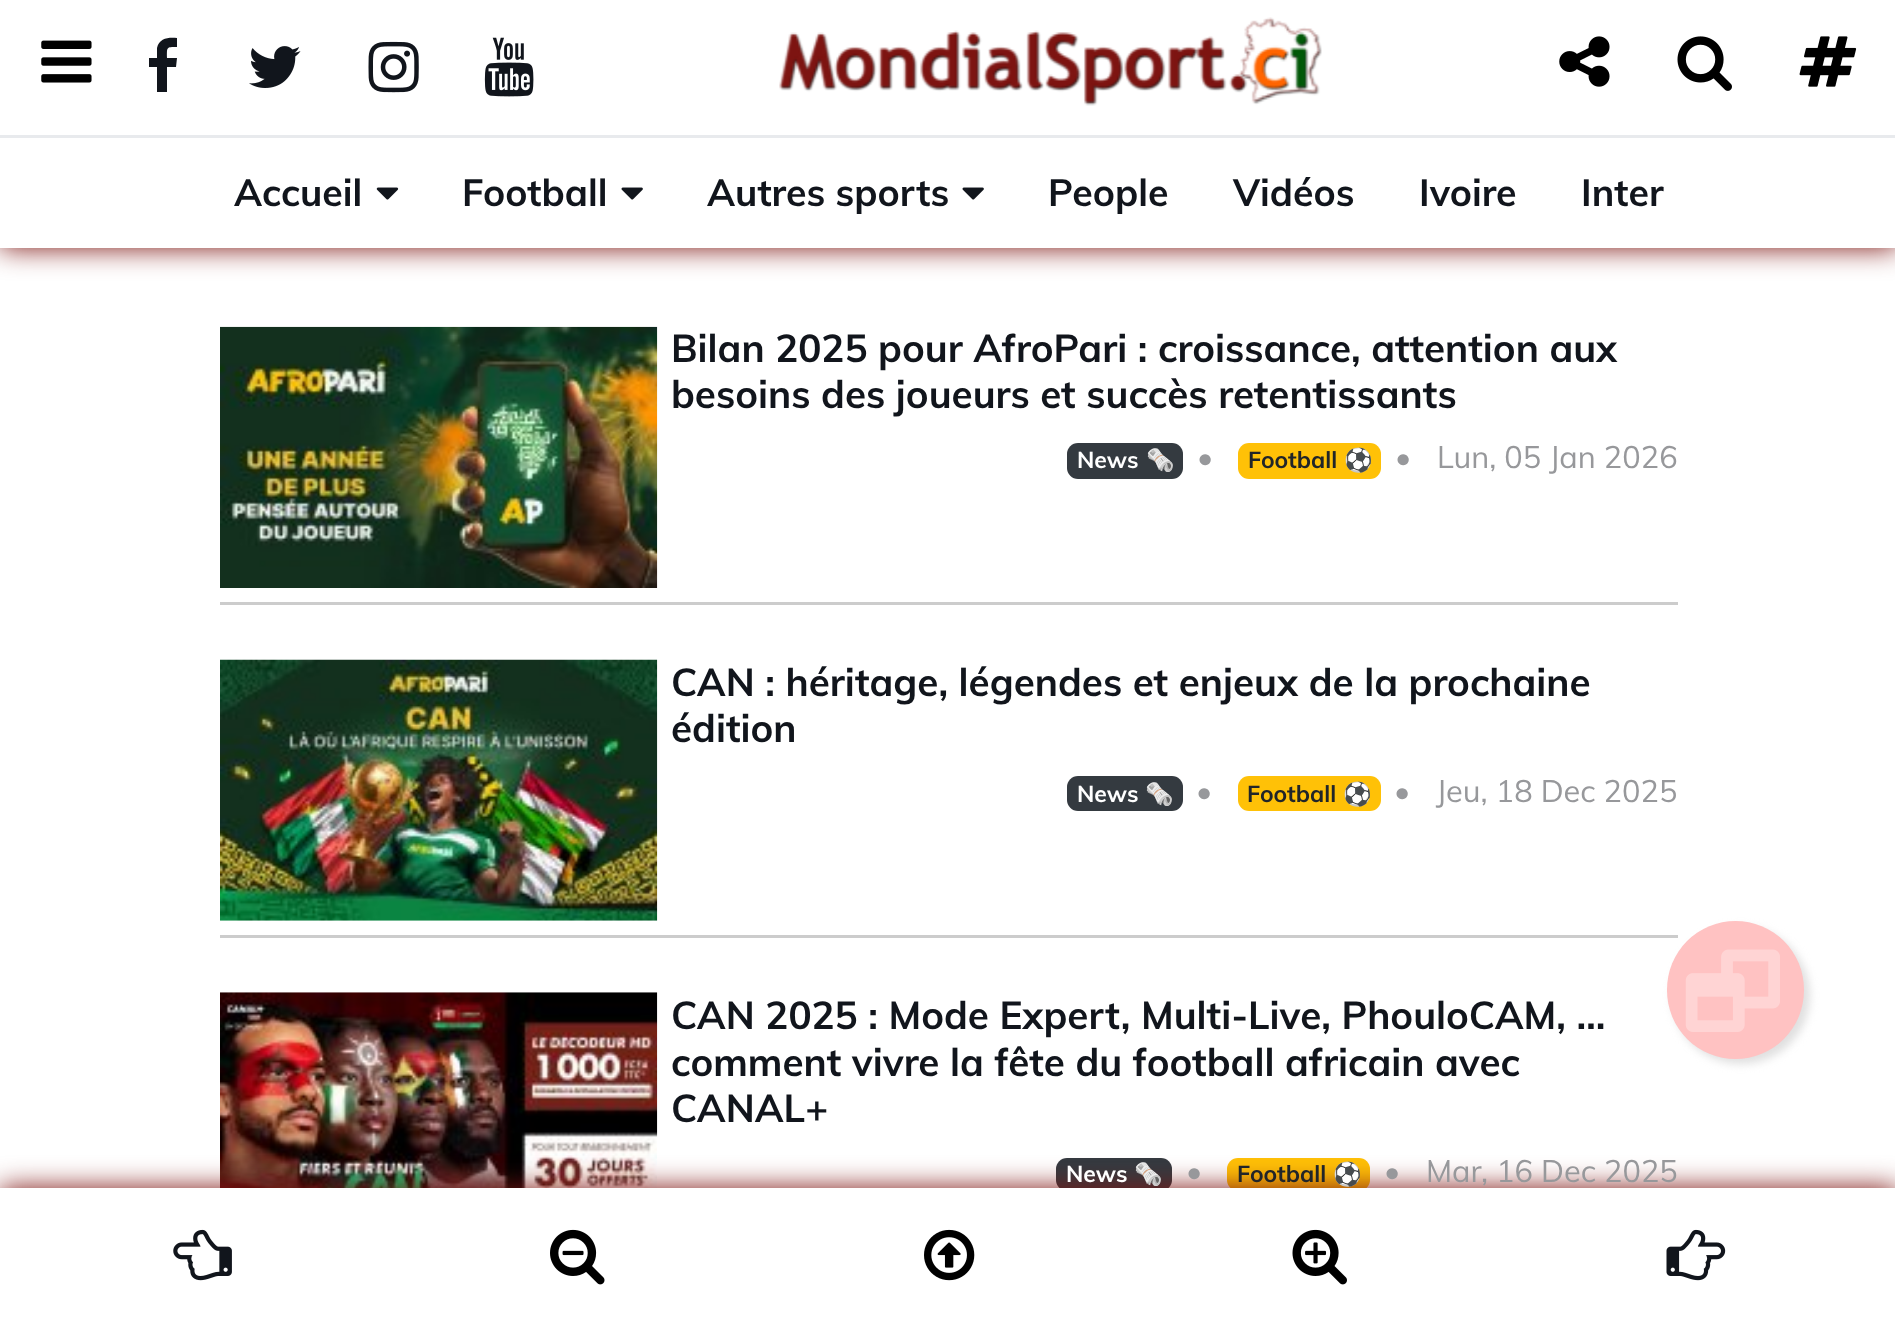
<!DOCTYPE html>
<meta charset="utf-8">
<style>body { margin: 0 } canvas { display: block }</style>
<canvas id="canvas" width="1895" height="1322"></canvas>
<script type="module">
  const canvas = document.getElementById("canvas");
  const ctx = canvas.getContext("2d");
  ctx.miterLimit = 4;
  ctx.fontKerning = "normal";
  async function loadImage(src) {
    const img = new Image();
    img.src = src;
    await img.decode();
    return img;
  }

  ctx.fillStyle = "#ffffff";
  ctx.fillRect(0, 0, 1895, 1322);
  ctx.fillStyle = "#7d1411";
  ctx.filter = "blur(14px)";
  ctx.beginPath();
  ctx.rect(0, 0, 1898, 248);
  ctx.fill();
  ctx.filter = "none";
  ctx.fillStyle = "#ffffff";
  ctx.fillRect(0, 0, 1895, 248);
  ctx.drawImage(await loadImage("img1.png"), 41, 40, 51, 43);
  ctx.fillStyle = "#11151c";
  ctx.beginPath();
  ctx.moveTo(177, 38);
  ctx.lineTo(177, 47);
  ctx.bezierCurveTo(166, 47, 167, 47, 167, 58);
  ctx.lineTo(177, 58);
  ctx.lineTo(176, 67);
  ctx.lineTo(167, 67);
  ctx.lineTo(167, 92);
  ctx.lineTo(157, 92);
  ctx.lineTo(157, 67);
  ctx.lineTo(149, 67);
  ctx.lineTo(149, 58);
  ctx.lineTo(157, 58);
  ctx.lineTo(157, 48);
  ctx.bezierCurveTo(159, 38, 169, 37, 177, 38);
  ctx.closePath();
  ctx.fill();
  ctx.drawImage(await loadImage("img2.png"), 249, 46, 52, 42);
  ctx.drawImage(await loadImage("img3.png"), 368, 41, 51, 52);
  ctx.drawImage(await loadImage("img4.png"), 484, 37, 50, 60);
  ctx.drawImage(await loadImage("img5.png"), 779, 17, 543, 89);
  ctx.drawImage(await loadImage("img6.png"), 1559, 36, 51, 51);
  ctx.drawImage(await loadImage("img7.png"), 1677, 36, 55, 55);
  ctx.drawImage(await loadImage("img8.png"), 1799, 36, 58, 51);
  ctx.fillStyle = "#e8eaed";
  ctx.fillRect(0, 135, 1895, 3);
  ctx.font = "bold 37.5px Muli";
  ctx.fillStyle = "#11151c";
  ctx.fillText("Accueil", 234, 206);
  ctx.drawImage(await loadImage("img9.png"), 376, 187, 23, 13);
  ctx.fillText("Football", 462, 206);
  ctx.drawImage(await loadImage("img10.png"), 621, 187, 22, 13);
  ctx.fillText("Autres sports", 707, 206);
  ctx.drawImage(await loadImage("img10.png"), 962, 187, 22, 13);
  ctx.fillText("People", 1048, 206);
  ctx.fillText("Vidéos", 1233, 206);
  ctx.fillText("Ivoire", 1419, 206);
  ctx.fillText("Inter", 1581, 206);
  ctx.fillStyle = "#cccccc";
  ctx.fillRect(220, 935, 1458, 3);
  ctx.fillStyle = "#e0e0e0";
  ctx.filter = "blur(4px)";
  ctx.beginPath();
  ctx.roundRect(1672, 927, 138, 137, 68.5);
  ctx.fill();
  ctx.filter = "none";
  ctx.fillStyle = "#ffc2c2";
  ctx.beginPath();
  ctx.roundRect(1667, 921, 137, 138, 68.5);
  ctx.fill();
  ctx.drawImage(await loadImage("img11.png"), 1685, 949, 95, 83);
  ctx.drawImage(await loadImage("img19.png"), 220, 992, 438, 196);
  ctx.fillStyle = "#343a40";
  ctx.beginPath();
  ctx.roundRect(1056, 1158, 116, 33, 11);
  ctx.fill();
  ctx.fillStyle = "#ffc107";
  ctx.beginPath();
  ctx.roundRect(1227, 1158, 143, 33, 11);
  ctx.fill();
  ctx.fillStyle = "#7d1411";
  ctx.filter = "blur(14px)";
  ctx.beginPath();
  ctx.rect(0, 1188, 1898, 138);
  ctx.fill();
  ctx.filter = "none";
  ctx.fillStyle = "#ffffff";
  ctx.fillRect(0, 1188, 1895, 134);
  ctx.drawImage(await loadImage("img12.png"), 173, 1229, 59, 52);
  ctx.drawImage(await loadImage("img13.png"), 550, 1229, 55, 56);
  ctx.drawImage(await loadImage("img14.png"), 924, 1229, 51, 52);
  ctx.drawImage(await loadImage("img15.png"), 1292, 1229, 55, 56);
  ctx.drawImage(await loadImage("img16.png"), 1666, 1229, 60, 52);
  ctx.fillStyle = "#cccccc";
  ctx.fillRect(220, 602, 1458, 3);
  ctx.drawImage(await loadImage("img17.png"), 220, 326, 438, 262);
  ctx.font = "bold 38.5px Muli";
  ctx.fillStyle = "#11151c";
  ctx.fillText("Bilan 2025 pour AfroPari : croissance, attention aux", 671, 362);
  ctx.fillText("besoins des joueurs et succès retentissants", 671, 408);
  ctx.fillStyle = "#343a40";
  ctx.beginPath();
  ctx.roundRect(1067, 443, 116, 36, 11);
  ctx.fill();
  ctx.font = "bold 23px Muli";
  ctx.fillStyle = "#ffffff";
  ctx.fillText("News", 1077, 468);
  ctx.font = "bold 23px Noto Color Emoji";
  ctx.fillText("🗞️", 1146, 468);
  ctx.font = "30.75px Muli";
  ctx.fillStyle = "#97989b";
  ctx.fillText("•", 1197, 468);
  ctx.fillStyle = "#ffc107";
  ctx.beginPath();
  ctx.roundRect(1238, 443, 143, 36, 11);
  ctx.fill();
  ctx.font = "bold 23px Muli";
  ctx.fillStyle = "#212529";
  ctx.fillText("Football", 1248, 468);
  ctx.font = "bold 23px Noto Color Emoji";
  ctx.fillText("⚽️", 1344, 468);
  ctx.font = "30.75px Muli";
  ctx.fillStyle = "#97989b";
  ctx.fillText("•", 1395, 468);
  ctx.fillText("Lun, 05 Jan 2026", 1437, 468);
  ctx.drawImage(await loadImage("img18.png"), 220, 659, 438, 262);
  ctx.font = "bold 38.5px Muli";
  ctx.fillStyle = "#11151c";
  ctx.fillText("CAN : héritage, légendes et enjeux de la prochaine", 671, 696);
  ctx.fillText("édition", 671, 742);
  ctx.fillStyle = "#343a40";
  ctx.beginPath();
  ctx.roundRect(1067, 776, 116, 35, 11);
  ctx.fill();
  ctx.font = "bold 23px Muli";
  ctx.fillStyle = "#ffffff";
  ctx.fillText("News", 1077, 802);
  ctx.font = "bold 23px Noto Color Emoji";
  ctx.fillText("🗞️", 1145, 802);
  ctx.font = "30.75px Muli";
  ctx.fillStyle = "#97989b";
  ctx.fillText("•", 1196, 802);
  ctx.fillStyle = "#ffc107";
  ctx.beginPath();
  ctx.roundRect(1238, 776, 143, 35, 11);
  ctx.fill();
  ctx.font = "bold 23px Muli";
  ctx.fillStyle = "#212529";
  ctx.fillText("Football", 1247, 802);
  ctx.font = "bold 23px Noto Color Emoji";
  ctx.fillText("⚽️", 1343, 802);
  ctx.font = "30.75px Muli";
  ctx.fillStyle = "#97989b";
  ctx.fillText("•", 1394, 802);
  ctx.fillText("Jeu, 18 Dec 2025", 1436, 802);
  ctx.font = "bold 38.5px Muli";
  ctx.fillStyle = "#11151c";
  ctx.fillText("CAN 2025 : Mode Expert, Multi-Live, PhouloCAM, …", 671, 1029);
  ctx.fillText("comment vivre la fête du football africain avec", 671, 1076);
  ctx.fillText("CANAL+", 671, 1122);
  ctx.font = "bold 23px Muli";
  ctx.fillStyle = "#ffffff";
  ctx.fillText("News", 1066, 1182);
  ctx.font = "bold 23px Noto Color Emoji";
  ctx.fillText("🗞️", 1134, 1182);
  ctx.font = "30.75px Muli";
  ctx.fillStyle = "#97989b";
  ctx.fillText("•", 1186, 1182);
  ctx.font = "bold 23px Muli";
  ctx.fillStyle = "#212529";
  ctx.fillText("Football", 1237, 1182);
  ctx.font = "bold 23px Noto Color Emoji";
  ctx.fillText("⚽️", 1333, 1182);
  ctx.font = "30.75px Muli";
  ctx.fillStyle = "#97989b";
  ctx.fillText("•", 1384, 1182);
  ctx.fillText("Mar, 16 Dec 2025", 1426, 1182);
</script>
